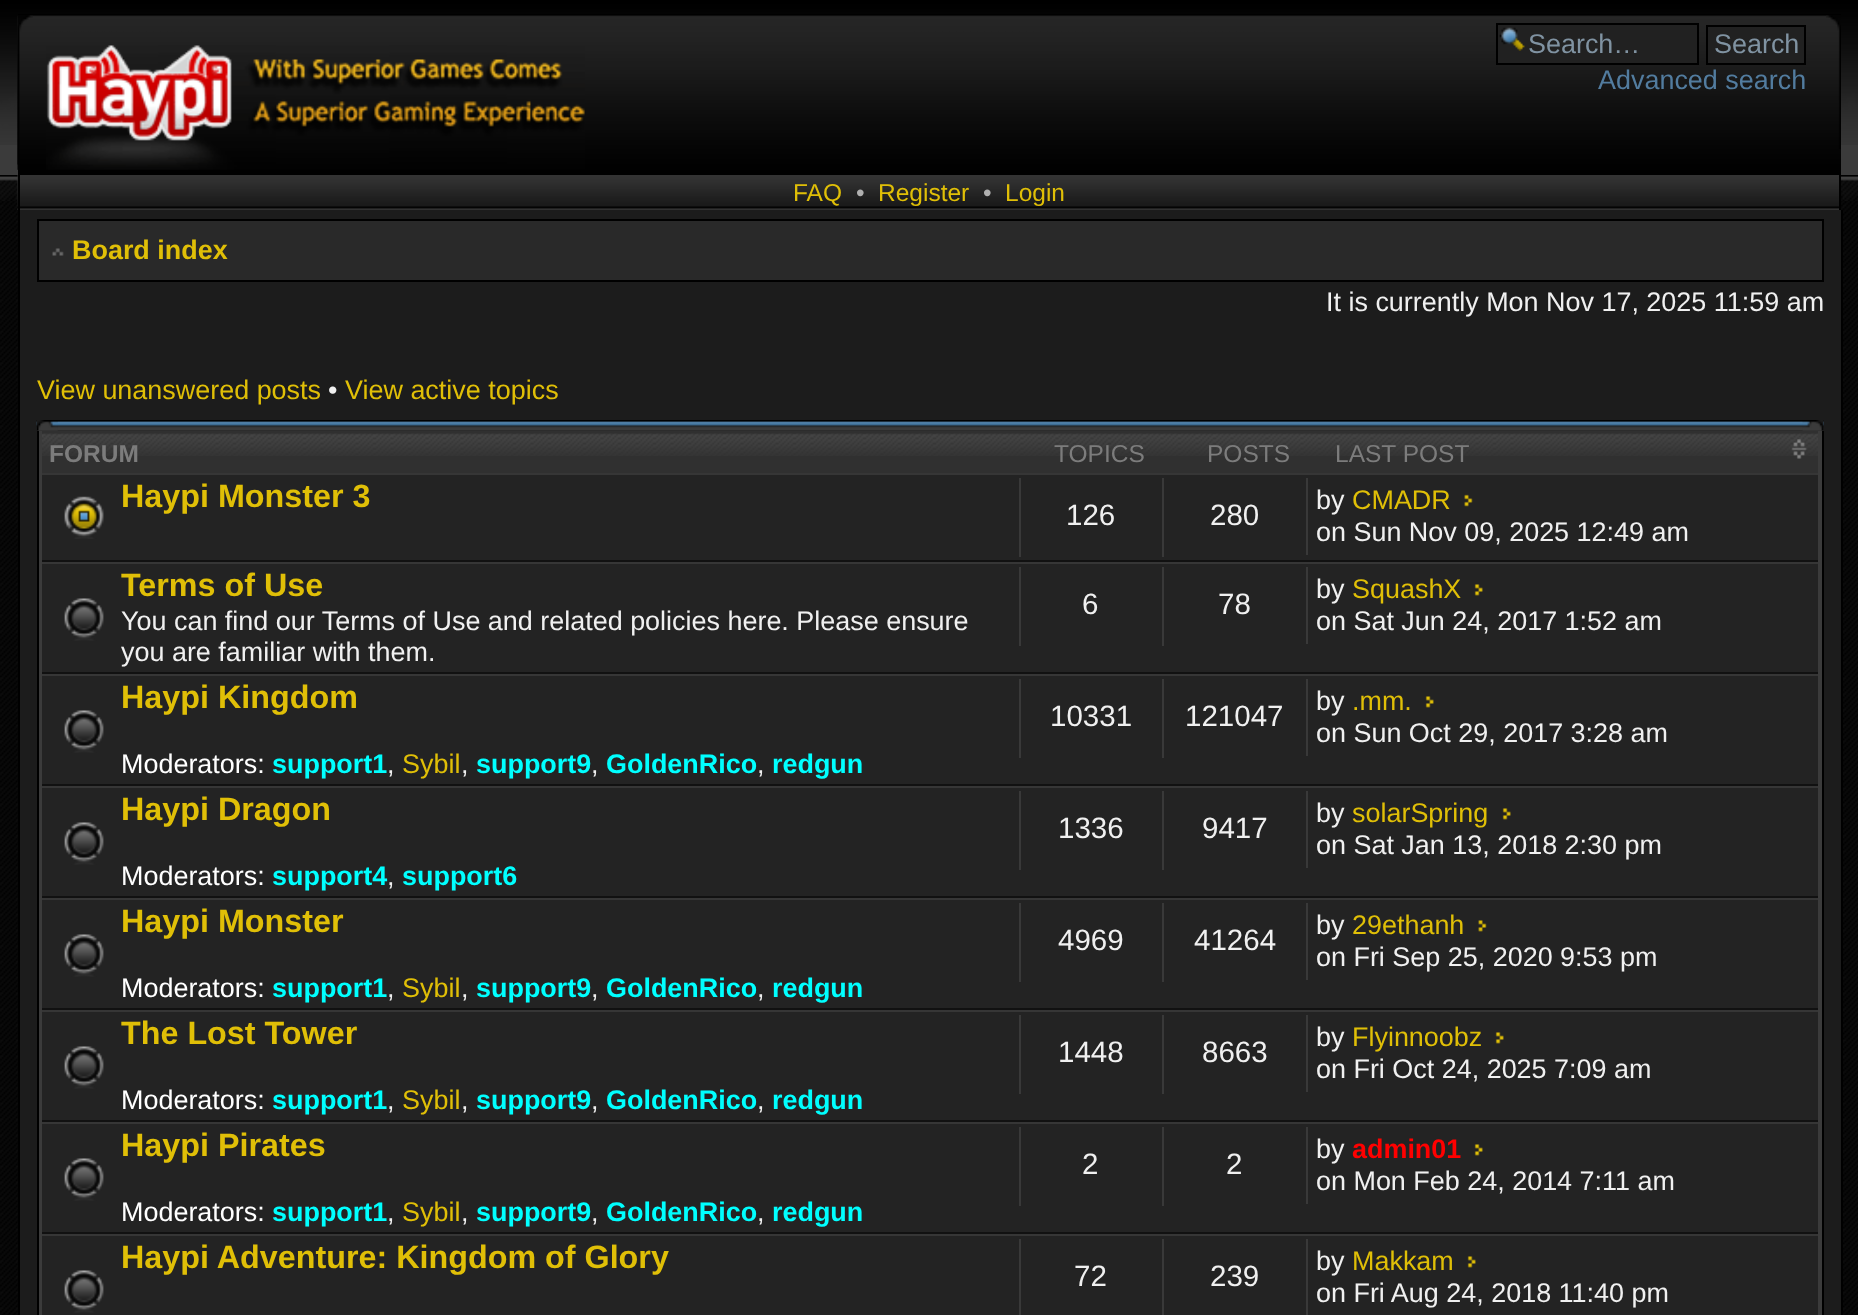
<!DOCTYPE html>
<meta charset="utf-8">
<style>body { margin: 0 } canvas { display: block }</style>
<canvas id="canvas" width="1858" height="1315"></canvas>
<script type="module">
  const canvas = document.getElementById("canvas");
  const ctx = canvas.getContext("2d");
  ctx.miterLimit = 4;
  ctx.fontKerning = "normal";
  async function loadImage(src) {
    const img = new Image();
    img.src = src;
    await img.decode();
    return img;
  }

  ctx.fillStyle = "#ffffff";
  ctx.fillRect(0, 0, 1858, 1315);
  ctx.drawImage(await loadImage("img1.png"), 0, 201, 1858, 1114);
  ctx.fillStyle = "#3b3b3b";
  ctx.fillRect(0, 145, 1858, 30);
  ctx.drawImage(await loadImage("img2.png"), 0, 0, 1858, 145);
  ctx.fillStyle = "#000000";
  ctx.fillRect(18, 14, 1823, 161);
  ctx.drawImage(await loadImage("img3.png"), 17, 15, 1824, 155);
  ctx.drawImage(await loadImage("img4.png"), 17, 15, 16, 150);
  ctx.drawImage(await loadImage("img5.png"), 1826, 15, 15, 134);
  ctx.drawImage(await loadImage("img6.png"), 46, 45, 539, 125);
  ctx.fillStyle = "#212121";
  ctx.fillRect(1498, 25, 199, 38);
  ctx.drawImage(await loadImage("img7.png"), 1499, 27, 26, 24);
  ctx.strokeStyle = "#000000";
  ctx.lineWidth = 2;
  ctx.strokeRect(1497, 24, 201, 40);
  ctx.font = "26.95px Liberation Sans";
  ctx.fillStyle = "#8093a2";
  ctx.fillText("Search…", 1528, 53);
  ctx.fillStyle = "#212121";
  ctx.beginPath();
  ctx.rect(1707, 26, 98, 38);
  ctx.fill();
  ctx.stroke();
  ctx.fillStyle = "#8093a2";
  ctx.fillText("Search", 1714, 53);
  ctx.fillStyle = "#527c9f";
  ctx.fillText("Advanced search", 1598, 89);
  ctx.drawImage(await loadImage("img8.png"), 0, 175, 1858, 26);
  ctx.fillStyle = "#1c1c1c";
  ctx.fillRect(20, 210, 1821, 1105);
  ctx.drawImage(await loadImage("img9.png"), 17, 175, 1822, 35);
  ctx.fillStyle = "#000000";
  ctx.fillRect(1839, 175, 2, 35);
  ctx.fillRect(18, 175, 2, 1140);
  ctx.font = "24.5px Liberation Sans";
  ctx.fillStyle = "#e0bf07";
  ctx.fillText("FAQ", 793, 201);
  ctx.fillStyle = "#b0b0b0";
  ctx.fillText("•", 856, 201);
  ctx.fillStyle = "#e0bf07";
  ctx.fillText("Register", 878, 201);
  ctx.fillStyle = "#b0b0b0";
  ctx.fillText("•", 983, 201);
  ctx.fillStyle = "#e0bf07";
  ctx.fillText("Login", 1005, 201);
  ctx.fillStyle = "#000000";
  ctx.fillRect(1841, 210, 2, 1105);
  ctx.fillStyle = "#292929";
  ctx.beginPath();
  ctx.rect(38, 220, 1785, 61);
  ctx.fill();
  ctx.stroke();
  ctx.drawImage(await loadImage("img10.png"), 52, 248, 12, 8);
  ctx.font = "bold 26.95px Liberation Sans";
  ctx.fillStyle = "#e0bf07";
  ctx.fillText("Board index", 72, 259);
  ctx.font = "26.95px Liberation Sans";
  ctx.fillStyle = "#f0f0f0";
  ctx.fillText("It is currently Mon Nov 17, 2025 11:59 am", 1326, 311);
  ctx.fillStyle = "#e0bf07";
  ctx.fillText("View unanswered posts", 37, 399);
  ctx.fillStyle = "#f0f0f0";
  ctx.fillText("•", 328, 399);
  ctx.fillStyle = "#e0bf07";
  ctx.fillText("View active topics", 345, 399);
  ctx.drawImage(await loadImage("img11.png"), 36, 420, 1788, 11);
  ctx.drawImage(await loadImage("img12.png"), 36, 420, 22, 11);
  ctx.drawImage(await loadImage("img13.png"), 1802, 420, 22, 11);
  ctx.fillStyle = "#3b3b3b";
  ctx.fillRect(39, 431, 1783, 884);
  ctx.fillStyle = "#000000";
  ctx.fillRect(1822, 431, 2, 884);
  ctx.fillRect(37, 431, 2, 884);
  ctx.fillStyle = "#303030";
  ctx.fillRect(42, 431, 1776, 42);
  ctx.drawImage(await loadImage("img14.png"), 42, 433, 1776, 23);
  ctx.font = "bold 24.5px Liberation Sans";
  ctx.fillStyle = "#7c7c7c";
  ctx.fillText("FORUM", 49, 462);
  ctx.font = "24.5px Liberation Sans";
  ctx.fillText("TOPICS", 1054, 462);
  ctx.fillText("POSTS", 1207, 462);
  ctx.fillText("LAST POST", 1335, 462);
  ctx.drawImage(await loadImage("img15.png"), 1791, 439, 16, 20);
  ctx.fillStyle = "#232323";
  ctx.fillRect(42, 475, 1776, 85);
  ctx.fillStyle = "#363636";
  ctx.fillRect(42, 473, 1776, 2);
  ctx.fillStyle = "#111111";
  ctx.fillRect(42, 560, 1776, 2);
  ctx.drawImage(await loadImage("img16.png"), 64, 496, 40, 43);
  ctx.font = "bold 32.3px Liberation Sans";
  ctx.fillStyle = "#e0bf07";
  ctx.fillText("Haypi Monster 3", 121, 507);
  ctx.fillStyle = "#393939";
  ctx.fillRect(1019, 478, 2, 79);
  ctx.font = "29.5px Liberation Sans";
  ctx.fillStyle = "#f0f0f0";
  ctx.fillText("126", 1066, 525);
  ctx.fillStyle = "#393939";
  ctx.fillRect(1162, 478, 2, 79);
  ctx.fillStyle = "#f0f0f0";
  ctx.fillText("280", 1210, 525);
  ctx.fillStyle = "#393939";
  ctx.fillRect(1306, 478, 2, 77);
  ctx.font = "26.95px Liberation Sans";
  ctx.fillStyle = "#f0f0f0";
  ctx.fillText("by", 1316, 509);
  ctx.fillStyle = "#e0bf07";
  ctx.fillText("CMADR", 1352, 509);
  ctx.drawImage(await loadImage("img17.png"), 1464, 494, 9, 13);
  ctx.fillStyle = "#f0f0f0";
  ctx.fillText("on Sun Nov 09, 2025 12:49 am", 1316, 541);
  ctx.fillStyle = "#232323";
  ctx.fillRect(42, 564, 1776, 108);
  ctx.fillStyle = "#363636";
  ctx.fillRect(42, 562, 1776, 2);
  ctx.fillStyle = "#111111";
  ctx.fillRect(42, 672, 1776, 2);
  ctx.drawImage(await loadImage("img18.png"), 64, 598, 40, 43);
  ctx.font = "bold 32.3px Liberation Sans";
  ctx.fillStyle = "#e0bf07";
  ctx.fillText("Terms of Use", 121, 596);
  ctx.font = "26.95px Liberation Sans";
  ctx.fillStyle = "#f0f0f0";
  ctx.fillText("You can find our Terms of Use and related policies here. Please ensure", 121, 630);
  ctx.fillText("you are familiar with them.", 121, 661);
  ctx.fillStyle = "#393939";
  ctx.fillRect(1019, 567, 2, 79);
  ctx.font = "29.5px Liberation Sans";
  ctx.fillStyle = "#f0f0f0";
  ctx.fillText("6", 1082, 614);
  ctx.fillStyle = "#393939";
  ctx.fillRect(1162, 567, 2, 79);
  ctx.fillStyle = "#f0f0f0";
  ctx.fillText("78", 1218, 614);
  ctx.fillStyle = "#393939";
  ctx.fillRect(1306, 567, 2, 77);
  ctx.font = "26.95px Liberation Sans";
  ctx.fillStyle = "#f0f0f0";
  ctx.fillText("by", 1316, 598);
  ctx.fillStyle = "#e0bf07";
  ctx.fillText("SquashX", 1352, 598);
  ctx.drawImage(await loadImage("img19.png"), 1474, 584, 9, 12);
  ctx.fillStyle = "#f0f0f0";
  ctx.fillText("on Sat Jun 24, 2017 1:52 am", 1316, 630);
  ctx.fillStyle = "#232323";
  ctx.fillRect(42, 676, 1776, 108);
  ctx.fillStyle = "#363636";
  ctx.fillRect(42, 674, 1776, 2);
  ctx.fillStyle = "#111111";
  ctx.fillRect(42, 784, 1776, 2);
  ctx.drawImage(await loadImage("img18.png"), 64, 710, 40, 43);
  ctx.font = "bold 32.3px Liberation Sans";
  ctx.fillStyle = "#e0bf07";
  ctx.fillText("Haypi Kingdom", 121, 708);
  ctx.font = "26.95px Liberation Sans";
  ctx.fillStyle = "#ffffff";
  ctx.fillText("Moderators:", 121, 773);
  ctx.font = "bold 26.95px Liberation Sans";
  ctx.fillStyle = "#00ffff";
  ctx.fillText("support1", 272, 773);
  ctx.font = "26.95px Liberation Sans";
  ctx.fillStyle = "#f0f0f0";
  ctx.fillText(",", 387, 773);
  ctx.fillStyle = "#e0bf07";
  ctx.fillText("Sybil", 402, 773);
  ctx.fillStyle = "#f0f0f0";
  ctx.fillText(",", 461, 773);
  ctx.font = "bold 26.95px Liberation Sans";
  ctx.fillStyle = "#00ffff";
  ctx.fillText("support9", 476, 773);
  ctx.font = "26.95px Liberation Sans";
  ctx.fillStyle = "#f0f0f0";
  ctx.fillText(",", 591, 773);
  ctx.font = "bold 26.95px Liberation Sans";
  ctx.fillStyle = "#00ffff";
  ctx.fillText("GoldenRico", 606, 773);
  ctx.font = "26.95px Liberation Sans";
  ctx.fillStyle = "#f0f0f0";
  ctx.fillText(",", 757, 773);
  ctx.font = "bold 26.95px Liberation Sans";
  ctx.fillStyle = "#00ffff";
  ctx.fillText("redgun", 772, 773);
  ctx.fillStyle = "#393939";
  ctx.fillRect(1019, 679, 2, 79);
  ctx.font = "29.5px Liberation Sans";
  ctx.fillStyle = "#f0f0f0";
  ctx.fillText("10331", 1050, 726);
  ctx.fillStyle = "#393939";
  ctx.fillRect(1162, 679, 2, 79);
  ctx.fillStyle = "#f0f0f0";
  ctx.fillText("121047", 1185, 726);
  ctx.fillStyle = "#393939";
  ctx.fillRect(1306, 679, 2, 77);
  ctx.font = "26.95px Liberation Sans";
  ctx.fillStyle = "#f0f0f0";
  ctx.fillText("by", 1316, 710);
  ctx.fillStyle = "#e0bf07";
  ctx.fillText(".mm.", 1352, 710);
  ctx.drawImage(await loadImage("img19.png"), 1425, 696, 9, 12);
  ctx.fillStyle = "#f0f0f0";
  ctx.fillText("on Sun Oct 29, 2017 3:28 am", 1316, 742);
  ctx.fillStyle = "#232323";
  ctx.fillRect(42, 788, 1776, 108);
  ctx.fillStyle = "#363636";
  ctx.fillRect(42, 786, 1776, 2);
  ctx.fillStyle = "#111111";
  ctx.fillRect(42, 896, 1776, 2);
  ctx.drawImage(await loadImage("img18.png"), 64, 822, 40, 43);
  ctx.font = "bold 32.3px Liberation Sans";
  ctx.fillStyle = "#e0bf07";
  ctx.fillText("Haypi Dragon", 121, 820);
  ctx.font = "26.95px Liberation Sans";
  ctx.fillStyle = "#ffffff";
  ctx.fillText("Moderators:", 121, 885);
  ctx.font = "bold 26.95px Liberation Sans";
  ctx.fillStyle = "#00ffff";
  ctx.fillText("support4", 272, 885);
  ctx.font = "26.95px Liberation Sans";
  ctx.fillStyle = "#f0f0f0";
  ctx.fillText(",", 387, 885);
  ctx.font = "bold 26.95px Liberation Sans";
  ctx.fillStyle = "#00ffff";
  ctx.fillText("support6", 402, 885);
  ctx.fillStyle = "#393939";
  ctx.fillRect(1019, 791, 2, 79);
  ctx.font = "29.5px Liberation Sans";
  ctx.fillStyle = "#f0f0f0";
  ctx.fillText("1336", 1058, 838);
  ctx.fillStyle = "#393939";
  ctx.fillRect(1162, 791, 2, 79);
  ctx.fillStyle = "#f0f0f0";
  ctx.fillText("9417", 1202, 838);
  ctx.fillStyle = "#393939";
  ctx.fillRect(1306, 791, 2, 77);
  ctx.font = "26.95px Liberation Sans";
  ctx.fillStyle = "#f0f0f0";
  ctx.fillText("by", 1316, 822);
  ctx.fillStyle = "#e0bf07";
  ctx.fillText("solarSpring", 1352, 822);
  ctx.drawImage(await loadImage("img19.png"), 1502, 808, 9, 12);
  ctx.fillStyle = "#f0f0f0";
  ctx.fillText("on Sat Jan 13, 2018 2:30 pm", 1316, 854);
  ctx.fillStyle = "#232323";
  ctx.fillRect(42, 900, 1776, 108);
  ctx.fillStyle = "#363636";
  ctx.fillRect(42, 898, 1776, 2);
  ctx.fillStyle = "#111111";
  ctx.fillRect(42, 1008, 1776, 2);
  ctx.drawImage(await loadImage("img18.png"), 64, 934, 40, 43);
  ctx.font = "bold 32.3px Liberation Sans";
  ctx.fillStyle = "#e0bf07";
  ctx.fillText("Haypi Monster", 121, 932);
  ctx.font = "26.95px Liberation Sans";
  ctx.fillStyle = "#ffffff";
  ctx.fillText("Moderators:", 121, 997);
  ctx.font = "bold 26.95px Liberation Sans";
  ctx.fillStyle = "#00ffff";
  ctx.fillText("support1", 272, 997);
  ctx.font = "26.95px Liberation Sans";
  ctx.fillStyle = "#f0f0f0";
  ctx.fillText(",", 387, 997);
  ctx.fillStyle = "#e0bf07";
  ctx.fillText("Sybil", 402, 997);
  ctx.fillStyle = "#f0f0f0";
  ctx.fillText(",", 461, 997);
  ctx.font = "bold 26.95px Liberation Sans";
  ctx.fillStyle = "#00ffff";
  ctx.fillText("support9", 476, 997);
  ctx.font = "26.95px Liberation Sans";
  ctx.fillStyle = "#f0f0f0";
  ctx.fillText(",", 591, 997);
  ctx.font = "bold 26.95px Liberation Sans";
  ctx.fillStyle = "#00ffff";
  ctx.fillText("GoldenRico", 606, 997);
  ctx.font = "26.95px Liberation Sans";
  ctx.fillStyle = "#f0f0f0";
  ctx.fillText(",", 757, 997);
  ctx.font = "bold 26.95px Liberation Sans";
  ctx.fillStyle = "#00ffff";
  ctx.fillText("redgun", 772, 997);
  ctx.fillStyle = "#393939";
  ctx.fillRect(1019, 903, 2, 79);
  ctx.font = "29.5px Liberation Sans";
  ctx.fillStyle = "#f0f0f0";
  ctx.fillText("4969", 1058, 950);
  ctx.fillStyle = "#393939";
  ctx.fillRect(1162, 903, 2, 79);
  ctx.fillStyle = "#f0f0f0";
  ctx.fillText("41264", 1194, 950);
  ctx.fillStyle = "#393939";
  ctx.fillRect(1306, 903, 2, 77);
  ctx.font = "26.95px Liberation Sans";
  ctx.fillStyle = "#f0f0f0";
  ctx.fillText("by", 1316, 934);
  ctx.fillStyle = "#e0bf07";
  ctx.fillText("29ethanh", 1352, 934);
  ctx.drawImage(await loadImage("img20.png"), 1478, 920, 9, 12);
  ctx.fillStyle = "#f0f0f0";
  ctx.fillText("on Fri Sep 25, 2020 9:53 pm", 1316, 966);
  ctx.fillStyle = "#232323";
  ctx.fillRect(42, 1012, 1776, 108);
  ctx.fillStyle = "#363636";
  ctx.fillRect(42, 1010, 1776, 2);
  ctx.fillStyle = "#111111";
  ctx.fillRect(42, 1120, 1776, 2);
  ctx.drawImage(await loadImage("img18.png"), 64, 1046, 40, 43);
  ctx.font = "bold 32.3px Liberation Sans";
  ctx.fillStyle = "#e0bf07";
  ctx.fillText("The Lost Tower", 121, 1044);
  ctx.font = "26.95px Liberation Sans";
  ctx.fillStyle = "#ffffff";
  ctx.fillText("Moderators:", 121, 1109);
  ctx.font = "bold 26.95px Liberation Sans";
  ctx.fillStyle = "#00ffff";
  ctx.fillText("support1", 272, 1109);
  ctx.font = "26.95px Liberation Sans";
  ctx.fillStyle = "#f0f0f0";
  ctx.fillText(",", 387, 1109);
  ctx.fillStyle = "#e0bf07";
  ctx.fillText("Sybil", 402, 1109);
  ctx.fillStyle = "#f0f0f0";
  ctx.fillText(",", 461, 1109);
  ctx.font = "bold 26.95px Liberation Sans";
  ctx.fillStyle = "#00ffff";
  ctx.fillText("support9", 476, 1109);
  ctx.font = "26.95px Liberation Sans";
  ctx.fillStyle = "#f0f0f0";
  ctx.fillText(",", 591, 1109);
  ctx.font = "bold 26.95px Liberation Sans";
  ctx.fillStyle = "#00ffff";
  ctx.fillText("GoldenRico", 606, 1109);
  ctx.font = "26.95px Liberation Sans";
  ctx.fillStyle = "#f0f0f0";
  ctx.fillText(",", 757, 1109);
  ctx.font = "bold 26.95px Liberation Sans";
  ctx.fillStyle = "#00ffff";
  ctx.fillText("redgun", 772, 1109);
  ctx.fillStyle = "#393939";
  ctx.fillRect(1019, 1015, 2, 79);
  ctx.font = "29.5px Liberation Sans";
  ctx.fillStyle = "#f0f0f0";
  ctx.fillText("1448", 1058, 1062);
  ctx.fillStyle = "#393939";
  ctx.fillRect(1162, 1015, 2, 79);
  ctx.fillStyle = "#f0f0f0";
  ctx.fillText("8663", 1202, 1062);
  ctx.fillStyle = "#393939";
  ctx.fillRect(1306, 1015, 2, 77);
  ctx.font = "26.95px Liberation Sans";
  ctx.fillStyle = "#f0f0f0";
  ctx.fillText("by", 1316, 1046);
  ctx.fillStyle = "#e0bf07";
  ctx.fillText("Flyinnoobz", 1352, 1046);
  ctx.drawImage(await loadImage("img19.png"), 1495, 1032, 9, 12);
  ctx.fillStyle = "#f0f0f0";
  ctx.fillText("on Fri Oct 24, 2025 7:09 am", 1316, 1078);
  ctx.fillStyle = "#232323";
  ctx.fillRect(42, 1124, 1776, 108);
  ctx.fillStyle = "#363636";
  ctx.fillRect(42, 1122, 1776, 2);
  ctx.fillStyle = "#111111";
  ctx.fillRect(42, 1232, 1776, 2);
  ctx.drawImage(await loadImage("img18.png"), 64, 1158, 40, 43);
  ctx.font = "bold 32.3px Liberation Sans";
  ctx.fillStyle = "#e0bf07";
  ctx.fillText("Haypi Pirates", 121, 1156);
  ctx.font = "26.95px Liberation Sans";
  ctx.fillStyle = "#ffffff";
  ctx.fillText("Moderators:", 121, 1221);
  ctx.font = "bold 26.95px Liberation Sans";
  ctx.fillStyle = "#00ffff";
  ctx.fillText("support1", 272, 1221);
  ctx.font = "26.95px Liberation Sans";
  ctx.fillStyle = "#f0f0f0";
  ctx.fillText(",", 387, 1221);
  ctx.fillStyle = "#e0bf07";
  ctx.fillText("Sybil", 402, 1221);
  ctx.fillStyle = "#f0f0f0";
  ctx.fillText(",", 461, 1221);
  ctx.font = "bold 26.95px Liberation Sans";
  ctx.fillStyle = "#00ffff";
  ctx.fillText("support9", 476, 1221);
  ctx.font = "26.95px Liberation Sans";
  ctx.fillStyle = "#f0f0f0";
  ctx.fillText(",", 591, 1221);
  ctx.font = "bold 26.95px Liberation Sans";
  ctx.fillStyle = "#00ffff";
  ctx.fillText("GoldenRico", 606, 1221);
  ctx.font = "26.95px Liberation Sans";
  ctx.fillStyle = "#f0f0f0";
  ctx.fillText(",", 757, 1221);
  ctx.font = "bold 26.95px Liberation Sans";
  ctx.fillStyle = "#00ffff";
  ctx.fillText("redgun", 772, 1221);
  ctx.fillStyle = "#393939";
  ctx.fillRect(1019, 1127, 2, 79);
  ctx.font = "29.5px Liberation Sans";
  ctx.fillStyle = "#f0f0f0";
  ctx.fillText("2", 1082, 1174);
  ctx.fillStyle = "#393939";
  ctx.fillRect(1162, 1127, 2, 79);
  ctx.fillStyle = "#f0f0f0";
  ctx.fillText("2", 1226, 1174);
  ctx.fillStyle = "#393939";
  ctx.fillRect(1306, 1127, 2, 77);
  ctx.font = "26.95px Liberation Sans";
  ctx.fillStyle = "#f0f0f0";
  ctx.fillText("by", 1316, 1158);
  ctx.font = "bold 26.95px Liberation Sans";
  ctx.fillStyle = "#ff0000";
  ctx.fillText("admin01", 1352, 1158);
  ctx.drawImage(await loadImage("img19.png"), 1474, 1144, 9, 12);
  ctx.font = "26.95px Liberation Sans";
  ctx.fillStyle = "#f0f0f0";
  ctx.fillText("on Mon Feb 24, 2014 7:11 am", 1316, 1190);
  ctx.fillStyle = "#232323";
  ctx.fillRect(42, 1236, 1776, 79);
  ctx.fillStyle = "#363636";
  ctx.fillRect(42, 1234, 1776, 2);
  ctx.drawImage(await loadImage("img18.png"), 64, 1270, 40, 43);
  ctx.font = "bold 32.3px Liberation Sans";
  ctx.fillStyle = "#e0bf07";
  ctx.fillText("Haypi Adventure: Kingdom of Glory", 121, 1268);
  ctx.fillStyle = "#393939";
  ctx.fillRect(1019, 1239, 2, 76);
  ctx.font = "29.5px Liberation Sans";
  ctx.fillStyle = "#f0f0f0";
  ctx.fillText("72", 1074, 1286);
  ctx.fillStyle = "#393939";
  ctx.fillRect(1162, 1239, 2, 76);
  ctx.fillStyle = "#f0f0f0";
  ctx.fillText("239", 1210, 1286);
  ctx.fillStyle = "#393939";
  ctx.fillRect(1306, 1239, 2, 76);
  ctx.font = "26.95px Liberation Sans";
  ctx.fillStyle = "#f0f0f0";
  ctx.fillText("by", 1316, 1270);
  ctx.fillStyle = "#e0bf07";
  ctx.fillText("Makkam", 1352, 1270);
  ctx.drawImage(await loadImage("img19.png"), 1467, 1256, 9, 12);
  ctx.fillStyle = "#f0f0f0";
  ctx.fillText("on Fri Aug 24, 2018 11:40 pm", 1316, 1302);
</script>
